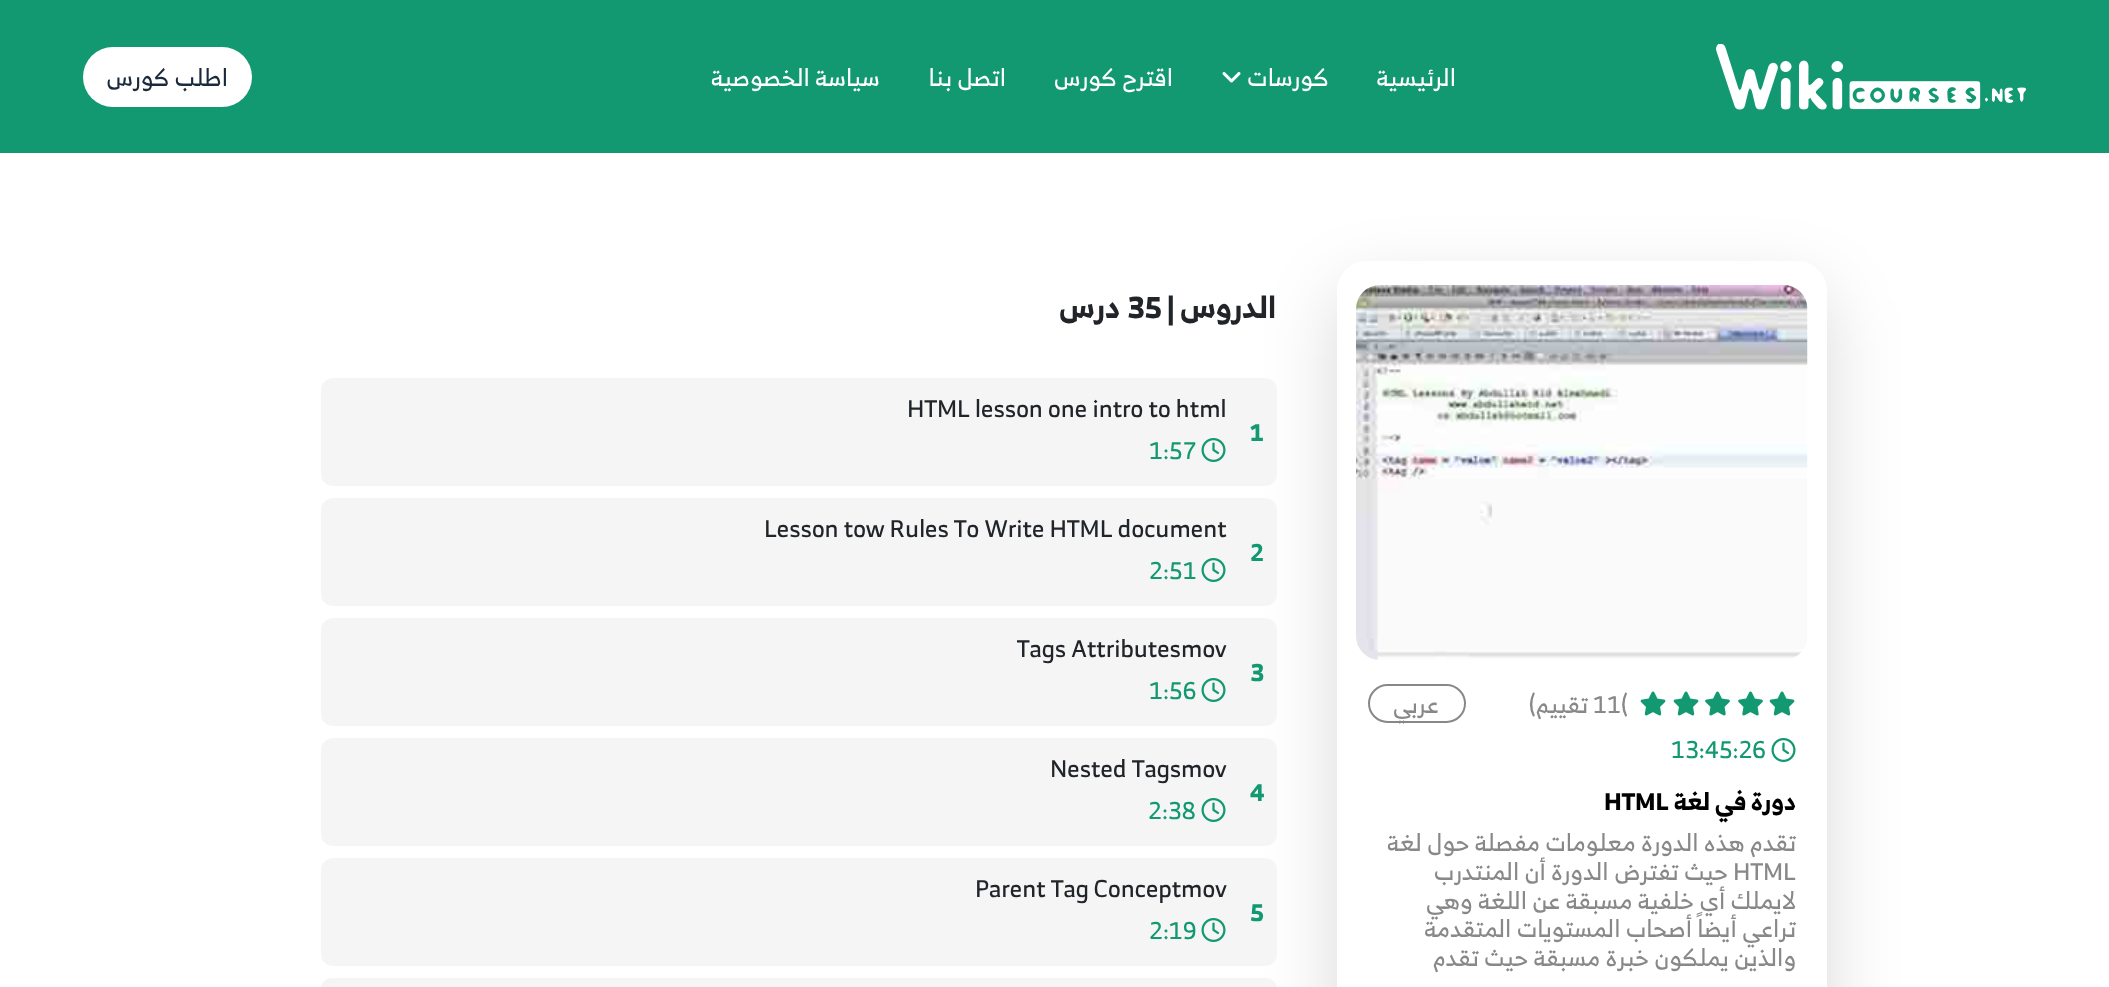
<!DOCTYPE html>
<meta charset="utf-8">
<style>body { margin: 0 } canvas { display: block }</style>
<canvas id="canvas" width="2109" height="987"></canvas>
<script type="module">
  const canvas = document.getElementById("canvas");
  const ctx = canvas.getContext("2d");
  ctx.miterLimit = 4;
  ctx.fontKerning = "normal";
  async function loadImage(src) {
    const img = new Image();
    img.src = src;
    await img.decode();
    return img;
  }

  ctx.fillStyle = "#ffffff";
  ctx.fillRect(0, 0, 2109, 987);
  ctx.fillStyle = "#139972";
  ctx.fillRect(0, 0, 2109, 153);
  ctx.drawImage(await loadImage("img1.png"), 1716, 44, 311, 66);
  ctx.direction = "rtl";
  ctx.font = "24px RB";
  ctx.fillStyle = "#ffffff";
  ctx.fillText("الرئيسية", 1456, 86);
  ctx.fillText("كورسات", 1329, 86);
  ctx.drawImage(await loadImage("img2.png"), 1222, 72, 19, 11);
  ctx.fillText("اقترح كورس", 1173, 86);
  ctx.fillText("اتصل بنا", 1006, 86);
  ctx.fillText("سياسة الخصوصية", 880, 86);
  ctx.beginPath();
  ctx.roundRect(83, 47, 169, 60, 30);
  ctx.fill();
  ctx.fillStyle = "#1a293b";
  ctx.fillText("اطلب كورس", 228, 86);
  ctx.save();
  ctx.beginPath();
  ctx.moveTo(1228, 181);
  ctx.lineTo(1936, 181);
  ctx.lineTo(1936, 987);
  ctx.lineTo(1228, 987);
  ctx.closePath();
  ctx.moveTo(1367, 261);
  ctx.lineTo(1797, 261);
  ctx.bezierCurveTo(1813.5, 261, 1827, 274.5, 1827, 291);
  ctx.lineTo(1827, 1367);
  ctx.bezierCurveTo(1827, 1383.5, 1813.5, 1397, 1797, 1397);
  ctx.lineTo(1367, 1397);
  ctx.bezierCurveTo(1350.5, 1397, 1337, 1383.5, 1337, 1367);
  ctx.lineTo(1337, 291);
  ctx.bezierCurveTo(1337, 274.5, 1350.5, 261, 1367, 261);
  ctx.closePath();
  ctx.clip("evenodd");
  ctx.fillStyle = "rgba(0, 0, 0, 0.15)";
  ctx.filter = "blur(36px)";
  ctx.beginPath();
  ctx.roundRect(1337, 290, 490, 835, 30);
  ctx.fill();
  ctx.filter = "none";
  ctx.restore();
  ctx.drawImage(await loadImage("img3.png"), 1356, 285, 452, 375);
  ctx.drawImage(await loadImage("img4.png"), 1769, 691, 26, 25);
  ctx.drawImage(await loadImage("img5.png"), 1738, 691, 25, 25);
  ctx.drawImage(await loadImage("img5.png"), 1705, 691, 25, 25);
  ctx.drawImage(await loadImage("img4.png"), 1673, 691, 26, 25);
  ctx.drawImage(await loadImage("img4.png"), 1640, 691, 26, 25);
  ctx.direction = "ltr";
  ctx.fillStyle = "#888888";
  ctx.fillText("11(", 1593, 713);
  ctx.direction = "rtl";
  ctx.fillText("تقييم)", 1588, 713);
  ctx.beginPath();
  ctx.roundRect(1369, 685, 96, 37, 18.5);
  ctx.strokeStyle = "#888888";
  ctx.lineWidth = 2;
  ctx.stroke();
  ctx.fillText("عربي", 1439, 713);
  ctx.drawImage(await loadImage("img6.png"), 1771, 738, 25, 24);
  ctx.direction = "ltr";
  ctx.fillStyle = "#139972";
  ctx.fillText("13:45:26", 1671, 758);
  ctx.direction = "rtl";
  ctx.font = "bold 24px RB";
  ctx.fillStyle = "#000000";
  ctx.fillText("دورة في لغة", 1796, 810);
  ctx.direction = "ltr";
  ctx.fillText("HTML", 1604, 810);
  ctx.direction = "rtl";
  ctx.font = "24px RB";
  ctx.fillStyle = "#888888";
  ctx.fillText("تقدم هذه الدورة معلومات مفصلة حول لغة", 1796, 851);
  ctx.direction = "ltr";
  ctx.fillText("HTML", 1733, 880);
  ctx.direction = "rtl";
  ctx.fillText("حيث تفترض الدورة أن المنتدرب", 1728, 880);
  ctx.fillText("لايملك أي خلفية مسبقة عن اللغة وهي", 1796, 909);
  ctx.fillText("تراعي أيضاً أصحاب المستويات المتقدمة", 1796, 937);
  ctx.fillText("والذين يملكون خبرة مسبقة حيث تقدم", 1796, 966);
  ctx.font = "bold 30px RB";
  ctx.fillStyle = "#212529";
  ctx.fillText("الدروس |", 1276, 318);
  ctx.direction = "ltr";
  ctx.fillText("35", 1127, 318);
  ctx.direction = "rtl";
  ctx.fillText("درس", 1120, 318);
  ctx.fillStyle = "#f5f5f5";
  ctx.beginPath();
  ctx.roundRect(321, 378, 956, 108, 12);
  ctx.fill();
  ctx.direction = "ltr";
  ctx.font = "bold 24px RB";
  ctx.fillStyle = "#139972";
  ctx.fillText("1", 1250, 441);
  ctx.font = "24px RB";
  ctx.fillStyle = "#212529";
  ctx.fillText("HTML lesson one intro to html", 907, 417);
  ctx.drawImage(await loadImage("img7.png"), 1201, 438, 25, 24);
  ctx.fillStyle = "#139972";
  ctx.fillText("1:57", 1149, 459);
  ctx.fillStyle = "#f5f5f5";
  ctx.beginPath();
  ctx.roundRect(321, 498, 956, 108, 12);
  ctx.fill();
  ctx.font = "bold 24px RB";
  ctx.fillStyle = "#139972";
  ctx.fillText("2", 1250, 561);
  ctx.font = "24px RB";
  ctx.fillStyle = "#212529";
  ctx.fillText("Lesson tow Rules To Write HTML document", 764, 537);
  ctx.drawImage(await loadImage("img7.png"), 1201, 558, 25, 24);
  ctx.fillStyle = "#139972";
  ctx.fillText("2:51", 1149, 579);
  ctx.fillStyle = "#f5f5f5";
  ctx.beginPath();
  ctx.roundRect(321, 618, 956, 108, 12);
  ctx.fill();
  ctx.font = "bold 24px RB";
  ctx.fillStyle = "#139972";
  ctx.fillText("3", 1250, 681);
  ctx.font = "24px RB";
  ctx.fillStyle = "#212529";
  ctx.fillText("Tags Attributesmov", 1017, 657);
  ctx.drawImage(await loadImage("img7.png"), 1201, 678, 25, 24);
  ctx.fillStyle = "#139972";
  ctx.fillText("1:56", 1149, 699);
  ctx.fillStyle = "#f5f5f5";
  ctx.beginPath();
  ctx.roundRect(321, 738, 956, 108, 12);
  ctx.fill();
  ctx.font = "bold 24px RB";
  ctx.fillStyle = "#139972";
  ctx.fillText("4", 1250, 801);
  ctx.font = "24px RB";
  ctx.fillStyle = "#212529";
  ctx.fillText("Nested Tagsmov", 1050, 777);
  ctx.drawImage(await loadImage("img7.png"), 1201, 798, 25, 24);
  ctx.fillStyle = "#139972";
  ctx.fillText("2:38", 1148, 819);
  ctx.fillStyle = "#f5f5f5";
  ctx.beginPath();
  ctx.roundRect(321, 858, 956, 108, 12);
  ctx.fill();
  ctx.font = "bold 24px RB";
  ctx.fillStyle = "#139972";
  ctx.fillText("5", 1250, 921);
  ctx.font = "24px RB";
  ctx.fillStyle = "#212529";
  ctx.fillText("Parent Tag Conceptmov", 975, 897);
  ctx.drawImage(await loadImage("img7.png"), 1201, 918, 25, 24);
  ctx.fillStyle = "#139972";
  ctx.fillText("2:19", 1149, 939);
  ctx.fillStyle = "#f5f5f5";
  ctx.beginPath();
  ctx.roundRect(321, 978, 956, 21, 12);
  ctx.fill();
</script>
